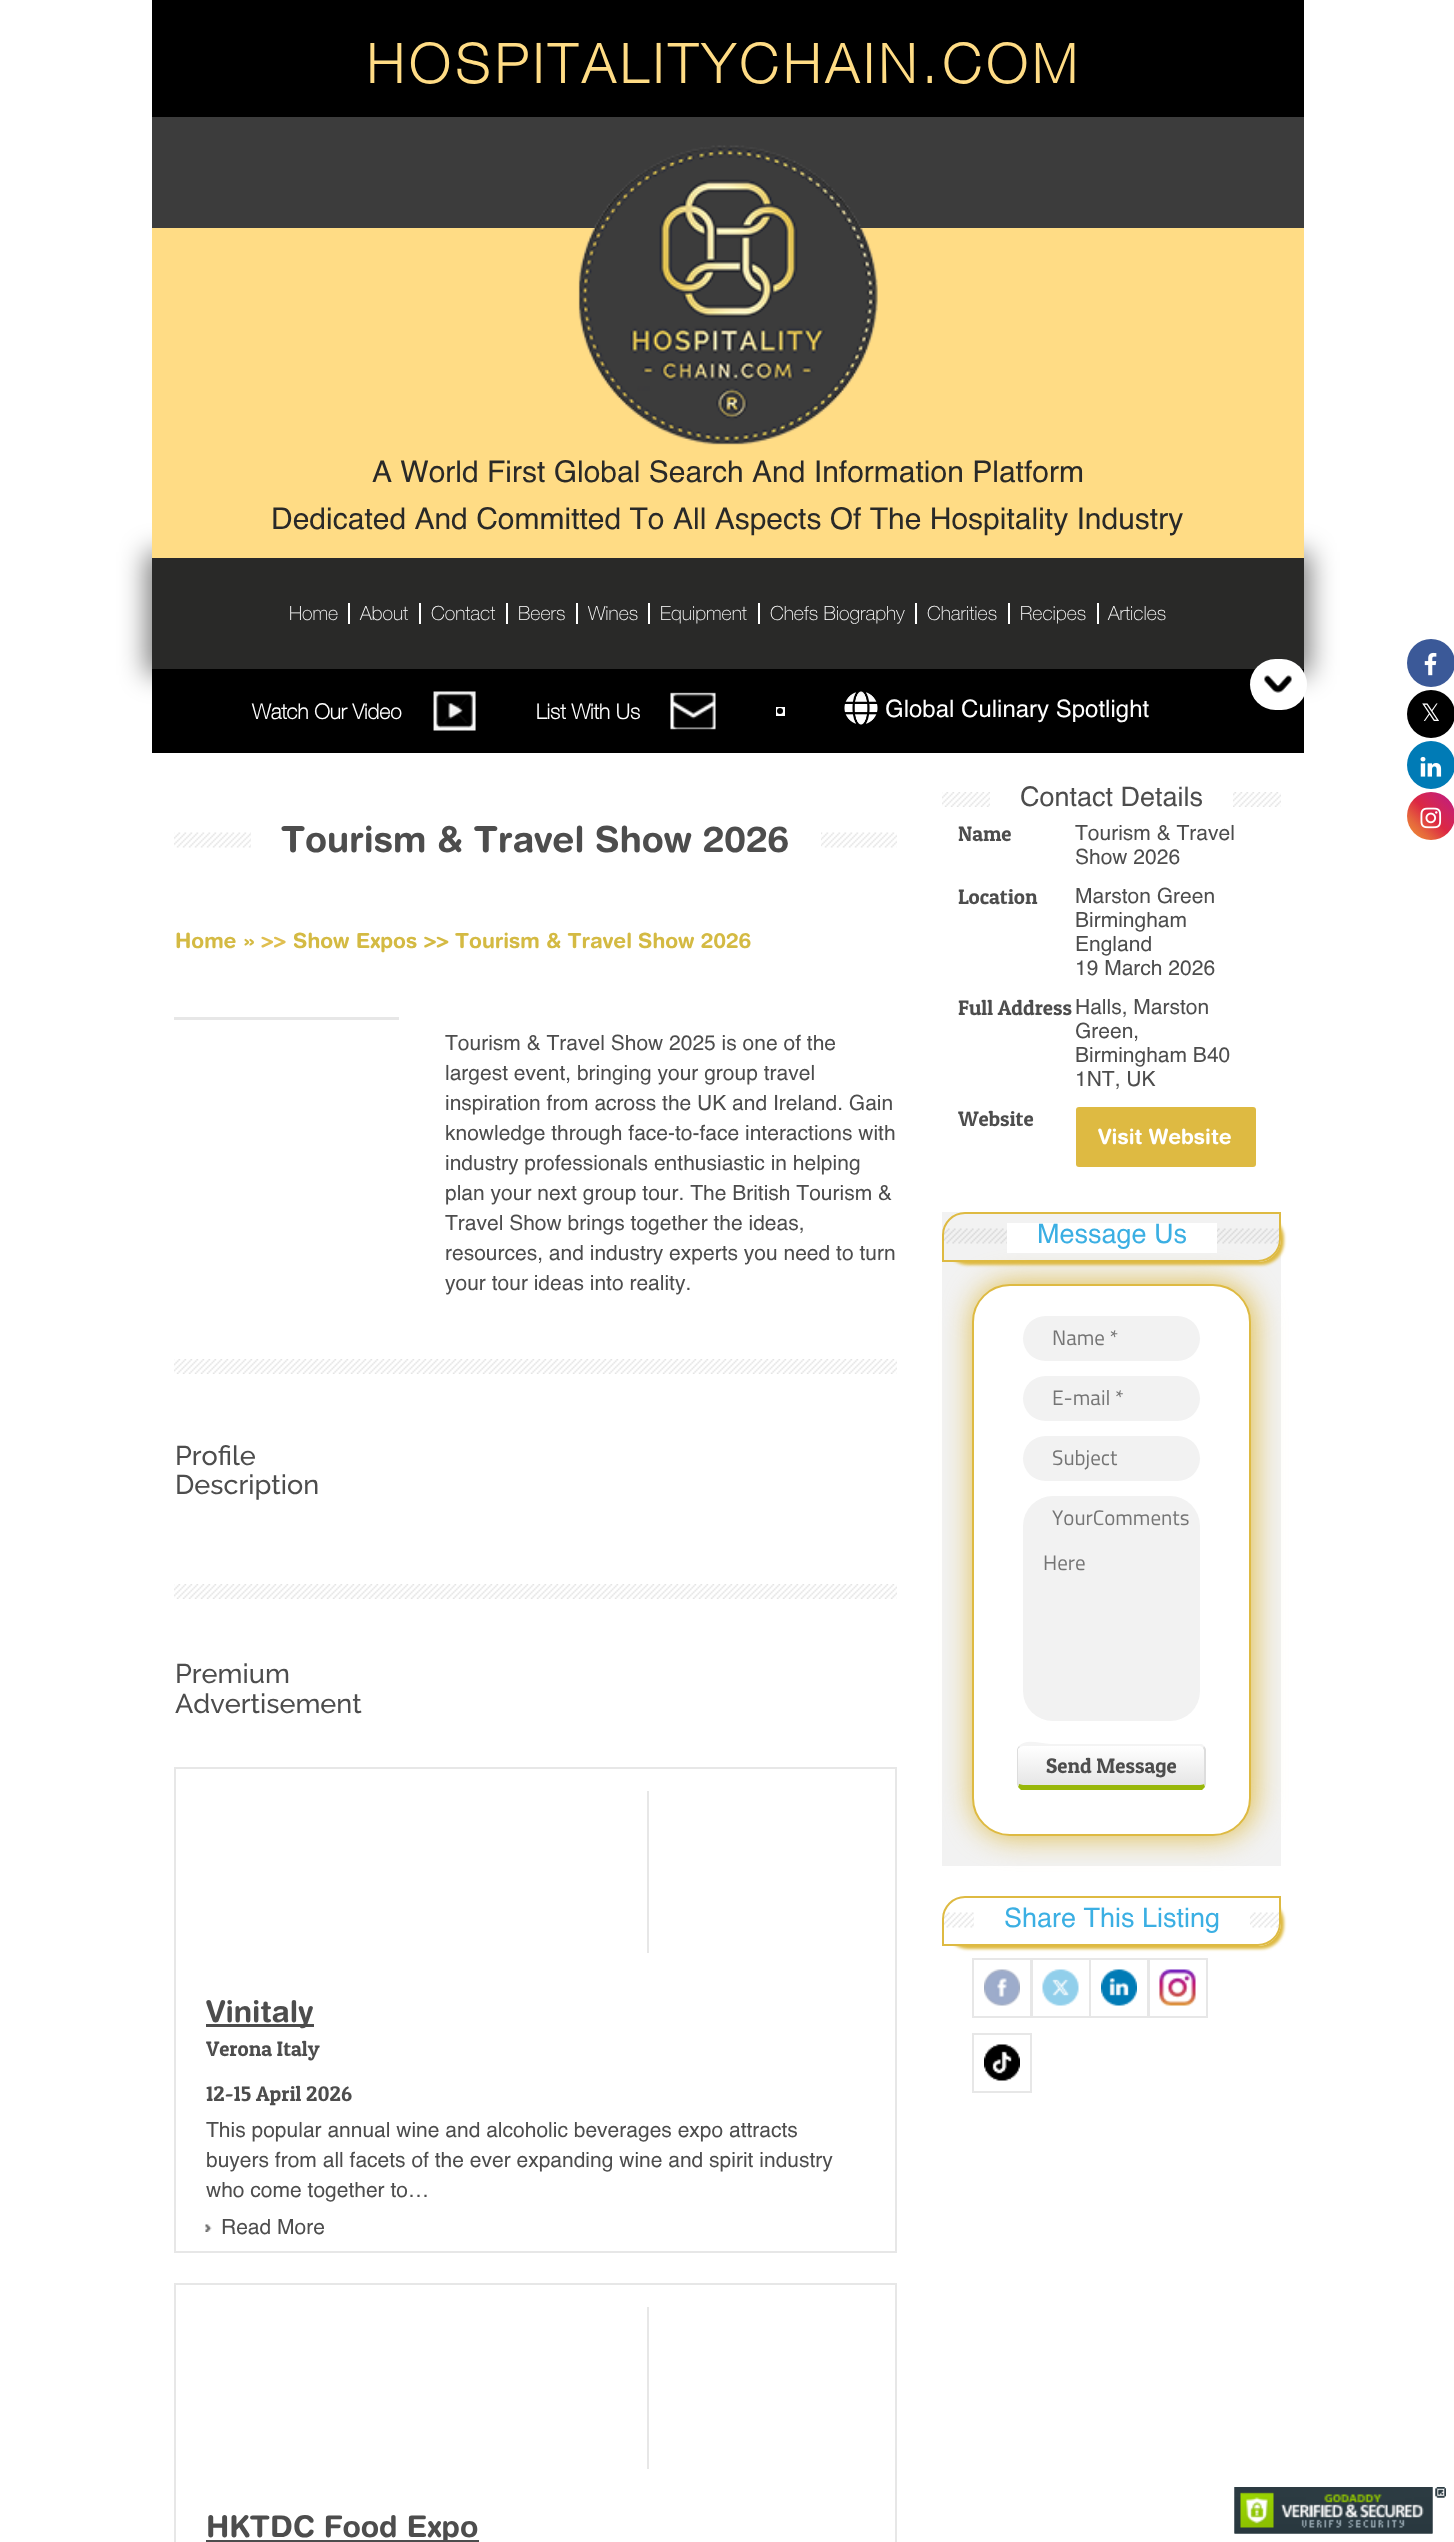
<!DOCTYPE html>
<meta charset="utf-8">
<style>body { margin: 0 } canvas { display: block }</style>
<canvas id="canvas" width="1454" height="2542"></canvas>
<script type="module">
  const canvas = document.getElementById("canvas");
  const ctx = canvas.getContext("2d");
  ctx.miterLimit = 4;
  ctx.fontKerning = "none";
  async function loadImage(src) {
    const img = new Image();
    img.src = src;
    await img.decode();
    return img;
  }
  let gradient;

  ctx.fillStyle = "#ffffff";
  ctx.fillRect(0, 0, 1454, 2542);
  ctx.fillStyle = "#000000";
  ctx.fillRect(152, 0, 1152, 753);
  ctx.letterSpacing = "6px";
  ctx.font = "bold 54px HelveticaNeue";
  ctx.fillStyle = "#ffdc85";
  ctx.fillText("HOSPITALITYCHAIN.COM", 367, 83);
  ctx.fillStyle = "#3c3c3c";
  ctx.fillRect(152, 117, 1152, 111);
  ctx.drawImage(await loadImage("img2.png"), 433, 691, 43, 40);
  ctx.drawImage(await loadImage("img3.png"), 670, 692, 46, 38);
  ctx.fillStyle = "#ffffff";
  ctx.fillRect(776, 707, 9, 9);
  ctx.fillStyle = "#000000";
  ctx.beginPath();
  ctx.arc(780, 711, 3, 0, Math.PI * 2);
  ctx.fill();
  ctx.drawImage(await loadImage("img4.png"), 844, 691, 34, 34);
  ctx.fillStyle = "rgba(0, 0, 0, 0.5)";
  ctx.filter = "blur(13.5px)";
  ctx.beginPath();
  ctx.rect(146, 552, 1164, 123);
  ctx.fill();
  ctx.filter = "none";
  ctx.fillStyle = "#ffdc85";
  ctx.fillRect(152, 228, 1152, 330);
  ctx.drawImage(await loadImage("img1.png"), 578, 145, 300, 300);
  ctx.letterSpacing = "0px";
  ctx.font = "30px Helvetica";
  ctx.fillStyle = "#292928";
  ctx.fillText("A World First Global Search And Information Platform", 372, 482);
  ctx.fillText("Dedicated And Committed To", 271, 529);
  ctx.fillText("All Aspects Of The Hospitality Industry", 673, 529);
  ctx.fillRect(152, 558, 1152, 111);
  ctx.fillStyle = "#ffffff";
  ctx.fillRect(348, 603, 2, 21);
  ctx.font = "100 19.5px HelveticaNeue";
  ctx.fillText("Home", 289, 620);
  ctx.fillRect(419, 603, 2, 21);
  ctx.fillText("About", 360, 620);
  ctx.fillRect(506, 603, 2, 21);
  ctx.fillText("Contact", 431, 620);
  ctx.fillRect(576, 603, 2, 21);
  ctx.fillText("Beers", 518, 620);
  ctx.fillRect(648, 603, 2, 21);
  ctx.fillText("Wines", 588, 620);
  ctx.fillRect(758, 603, 2, 21);
  ctx.fillText("Equipment", 660, 620);
  ctx.fillRect(915, 603, 2, 21);
  ctx.fillText("Chefs Biography", 770, 620);
  ctx.fillRect(1008, 603, 2, 21);
  ctx.fillText("Charities", 927, 620);
  ctx.fillRect(1097, 603, 2, 21);
  ctx.fillText("Recipes", 1020, 620);
  ctx.fillText("Articles", 1108, 620);
  ctx.font = "bold 21px HelveticaNeue";
  ctx.fillText("Watch Our Video", 252, 719);
  ctx.fillText("List With Us", 536, 719);
  ctx.font = "24px Helvetica";
  ctx.fillText("Global Culinary Spotlight", 885, 717);
  ctx.beginPath();
  ctx.roundRect(1250, 659, 57, 51, 25.5);
  ctx.fill();
  ctx.drawImage(await loadImage("img5.png"), 1264, 675, 28, 18);
  ctx.drawImage(await loadImage("img6.png"), 174, 832, 723, 16);
  ctx.fillRect(251, 832, 570, 16);
  ctx.font = "bold 36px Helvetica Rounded";
  ctx.fillStyle = "#4d4d4d";
  ctx.fillText("Tourism & Travel", 281, 852);
  ctx.fillText("Show 2026", 595, 852);
  ctx.font = "bold 21px Helvetica Rounded";
  ctx.fillStyle = "#d4ba43";
  ctx.fillText("Home »", 175, 948);
  ctx.fillStyle = "#e0bf50";
  ctx.fillText(">>", 261, 948);
  ctx.fillStyle = "#d4ba43";
  ctx.fillText("Show Expos >>", 293, 948);
  ctx.fillText("Tourism & Travel", 455, 948);
  ctx.fillText("Show 2026", 638, 948);
  ctx.fillStyle = "#e7e7e7";
  ctx.fillRect(174, 1017, 225, 3);
  ctx.font = "21px Helvetica";
  ctx.fillStyle = "#4d4d4d";
  ctx.fillText("Tourism & Travel Show 2025 is one of the", 445, 1050);
  ctx.fillText("largest event, bringing your group travel", 445, 1080);
  ctx.fillText("inspiration from across the UK and Ireland. Gain", 445, 1110);
  ctx.fillText("knowledge through face-to-face interactions with", 445, 1140);
  ctx.fillText("industry professionals enthusiastic in helping", 445, 1170);
  ctx.fillText("plan your next group tour. The British Tourism &", 445, 1200);
  ctx.fillText("Travel Show brings together the ideas,", 445, 1230);
  ctx.fillText("resources, and industry experts you need to turn", 445, 1260);
  ctx.fillText("your tour ideas into reality.", 445, 1290);
  ctx.drawImage(await loadImage("img7.png"), 174, 1359, 723, 15);
  ctx.font = "500 27px Raleway";
  ctx.fillText("Profile", 175, 1465);
  ctx.fillText("Description", 175, 1494);
  ctx.drawImage(await loadImage("img7.png"), 174, 1584, 723, 15);
  ctx.fillText("Premium", 175, 1683);
  ctx.fillText("Advertisement", 175, 1713);
  ctx.strokeStyle = "#e7e7e7";
  ctx.lineWidth = 2;
  ctx.strokeRect(175, 1768, 721, 484);
  ctx.fillStyle = "#e7e7e7";
  ctx.fillRect(647, 1791, 2, 162);
  ctx.fillStyle = "#4d4d4d";
  ctx.fillRect(206, 2024, 108, 3);
  ctx.font = "bold 30px Helvetica Rounded";
  ctx.fillText("Vinitaly", 206, 2022);
  ctx.font = "21px Patua One";
  ctx.fillText("Verona Italy", 206, 2056);
  ctx.fillText("12-15 April 2026", 206, 2101);
  ctx.font = "21px Helvetica";
  ctx.fillText("This popular annual wine and alcoholic beverages expo attracts", 206, 2137);
  ctx.fillText("buyers from all facets of the ever expanding wine and spirit industry", 206, 2167);
  ctx.fillText("who come together to…", 206, 2197);
  ctx.drawImage(await loadImage("img8.png"), 205, 2224, 7, 8);
  ctx.fillText("Read More", 221, 2234);
  ctx.strokeRect(175, 2284, 721, 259);
  ctx.fillStyle = "#e7e7e7";
  ctx.fillRect(647, 2307, 2, 162);
  ctx.fillStyle = "#4d4d4d";
  ctx.fillRect(206, 2540, 273, 2);
  ctx.font = "bold 30px Helvetica Rounded";
  ctx.fillText("HKTDC Food Expo", 206, 2537);
  ctx.drawImage(await loadImage("img9.png"), 942, 792, 339, 15);
  ctx.fillStyle = "#ffffff";
  ctx.fillRect(990, 792, 243, 15);
  ctx.font = "27px Helvetica";
  ctx.fillStyle = "#4d4d4d";
  ctx.fillText("Contact Details", 1020, 806);
  ctx.font = "21px Patua One";
  ctx.fillText("Name", 958, 841);
  ctx.font = "21px Helvetica";
  ctx.fillText("Tourism & Travel", 1075, 840);
  ctx.fillText("Show 2026", 1075, 864);
  ctx.font = "21px Patua One";
  ctx.fillText("Location", 958, 904);
  ctx.font = "21px Helvetica";
  ctx.fillText("Marston Green", 1075, 903);
  ctx.fillText("Birmingham", 1075, 927);
  ctx.fillText("England", 1075, 951);
  ctx.fillText("19 March 2026", 1075, 975);
  ctx.font = "21px Patua One";
  ctx.fillText("Full Address", 958, 1015);
  ctx.font = "21px Helvetica";
  ctx.fillText("Halls, Marston", 1075, 1014);
  ctx.fillText("Green,", 1075, 1038);
  ctx.fillText("Birmingham B40", 1075, 1062);
  ctx.fillText("1NT, UK", 1075, 1086);
  ctx.font = "21px Patua One";
  ctx.fillText("Website", 958, 1126);
  ctx.fillStyle = "#deba42";
  ctx.beginPath();
  ctx.roundRect(1076, 1107, 180, 60, 3);
  ctx.fill();
  ctx.font = "bold 21px Helvetica Rounded";
  ctx.fillStyle = "#ffffff";
  ctx.fillText("Visit Website", 1098, 1144);
  ctx.fillStyle = "#f2f2f2";
  ctx.fillRect(942, 1212, 339, 654);
  ctx.save();
  ctx.beginPath();
  ctx.moveTo(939, 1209);
  ctx.lineTo(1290, 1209);
  ctx.lineTo(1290, 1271);
  ctx.lineTo(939, 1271);
  ctx.closePath();
  ctx.moveTo(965, 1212);
  ctx.lineTo(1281, 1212);
  ctx.lineTo(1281, 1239);
  ctx.bezierCurveTo(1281, 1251.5, 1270.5, 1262, 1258, 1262);
  ctx.lineTo(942, 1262);
  ctx.lineTo(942, 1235);
  ctx.bezierCurveTo(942, 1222.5, 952.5, 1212, 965, 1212);
  ctx.closePath();
  ctx.clip("evenodd");
  ctx.fillStyle = "#deba42";
  ctx.filter = "blur(1.5px)";
  ctx.beginPath();
  ctx.roundRect(945, 1215, 339, 50, 23);
  ctx.fill();
  ctx.filter = "none";
  ctx.restore();
  ctx.drawImage(await loadImage("img10.png"), 942, 1228, 339, 16);
  ctx.beginPath();
  ctx.roundRect(943, 1213, 337, 48, [22, 0, 22, 0]);
  ctx.strokeStyle = "#deba42";
  ctx.stroke();
  ctx.fillStyle = "#deba42";
  ctx.filter = "blur(15px)";
  ctx.beginPath();
  ctx.roundRect(974, 1284, 279, 552, 38);
  ctx.fill();
  ctx.filter = "none";
  ctx.fillStyle = "#ffffff";
  ctx.fillRect(1007, 1223, 210, 30);
  ctx.font = "27px Helvetica";
  ctx.fillStyle = "#3bafe3";
  ctx.fillText("Message Us", 1037, 1243);
  ctx.fillStyle = "#ffffff";
  ctx.beginPath();
  ctx.roundRect(973, 1285, 277, 550, 37);
  ctx.fill();
  ctx.stroke();
  ctx.fillStyle = "#f2f2f2";
  ctx.beginPath();
  ctx.roundRect(1023, 1316, 177, 45, 22.5);
  ctx.fill();
  ctx.font = "21px Titillium Web";
  ctx.fillStyle = "#757575";
  ctx.fillText("Name *", 1052, 1345);
  ctx.fillStyle = "#f2f2f2";
  ctx.beginPath();
  ctx.roundRect(1023, 1376, 177, 45, 22.5);
  ctx.fill();
  ctx.fillStyle = "#757575";
  ctx.fillText("E-mail *", 1052, 1405);
  ctx.fillStyle = "#f2f2f2";
  ctx.beginPath();
  ctx.roundRect(1023, 1436, 177, 45, 22.5);
  ctx.fill();
  ctx.fillStyle = "#757575";
  ctx.fillText("Subject", 1052, 1465);
  ctx.fillStyle = "#f2f2f2";
  ctx.beginPath();
  ctx.roundRect(1023, 1496, 177, 225, 30);
  ctx.fill();
  ctx.fillStyle = "#757575";
  ctx.fillText("YourComments", 1052, 1525);
  ctx.fillText("Here", 1043, 1570);
  gradient = ctx.createLinearGradient(1019, 1746, 1019, 1785);
  gradient.addColorStop(0, "#ffffff");
  gradient.addColorStop(1, "#e6e6e6");
  ctx.fillStyle = gradient;
  ctx.beginPath();
  ctx.moveTo(1023, 1746);
  ctx.lineTo(1200, 1746);
  ctx.bezierCurveTo(1202, 1746, 1204, 1748, 1204, 1750);
  ctx.lineTo(1204, 1784);
  ctx.bezierCurveTo(1204, 1784, 1202, 1785, 1200, 1785);
  ctx.lineTo(1023, 1785);
  ctx.bezierCurveTo(1021, 1785, 1018, 1784, 1018, 1784);
  ctx.lineTo(1018, 1750);
  ctx.bezierCurveTo(1018, 1748, 1021, 1746, 1023, 1746);
  ctx.closePath();
  ctx.fill();
  ctx.fillStyle = "#f4f4f4";
  ctx.beginPath();
  ctx.moveTo(1023, 1746);
  ctx.lineTo(1020, 1747);
  ctx.lineTo(1019, 1746);
  ctx.bezierCurveTo(1026, 1738, 1040, 1744, 1051, 1744);
  ctx.lineTo(1202, 1744);
  ctx.lineTo(1204, 1746);
  ctx.lineTo(1203, 1748);
  ctx.bezierCurveTo(1202, 1747, 1201, 1746, 1200, 1746);
  ctx.closePath();
  ctx.fill();
  ctx.fillStyle = "#dddddd";
  ctx.beginPath();
  ctx.moveTo(1206, 1784);
  ctx.lineTo(1206, 1750);
  ctx.bezierCurveTo(1206, 1749, 1205, 1747, 1204, 1746);
  ctx.lineTo(1203, 1748);
  ctx.lineTo(1204, 1750);
  ctx.lineTo(1204, 1784);
  ctx.lineTo(1205, 1787);
  ctx.closePath();
  ctx.fill();
  ctx.fillStyle = "#98b709";
  ctx.beginPath();
  ctx.moveTo(1021, 1790);
  ctx.lineTo(1018, 1787);
  ctx.lineTo(1019, 1784);
  ctx.lineTo(1023, 1785);
  ctx.lineTo(1200, 1785);
  ctx.bezierCurveTo(1202, 1785, 1204, 1784, 1204, 1784);
  ctx.lineTo(1205, 1787);
  ctx.lineTo(1202, 1790);
  ctx.closePath();
  ctx.fill();
  ctx.fillStyle = "#dddddd";
  ctx.beginPath();
  ctx.moveTo(1017, 1750);
  ctx.lineTo(1017, 1784);
  ctx.lineTo(1018, 1787);
  ctx.lineTo(1019, 1784);
  ctx.lineTo(1018, 1784);
  ctx.lineTo(1018, 1749);
  ctx.lineTo(1020, 1747);
  ctx.lineTo(1019, 1746);
  ctx.bezierCurveTo(1018, 1747, 1017, 1749, 1017, 1750);
  ctx.closePath();
  ctx.fill();
  ctx.font = "21px Patua One";
  ctx.fillStyle = "#4d4d4d";
  ctx.fillText("Send Message", 1046, 1773);
  ctx.save();
  ctx.beginPath();
  ctx.moveTo(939, 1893);
  ctx.lineTo(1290, 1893);
  ctx.lineTo(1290, 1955);
  ctx.lineTo(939, 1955);
  ctx.closePath();
  ctx.moveTo(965, 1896);
  ctx.lineTo(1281, 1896);
  ctx.lineTo(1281, 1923);
  ctx.bezierCurveTo(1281, 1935.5, 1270.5, 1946, 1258, 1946);
  ctx.lineTo(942, 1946);
  ctx.lineTo(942, 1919);
  ctx.bezierCurveTo(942, 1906.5, 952.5, 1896, 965, 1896);
  ctx.closePath();
  ctx.clip("evenodd");
  ctx.fillStyle = "#deba42";
  ctx.filter = "blur(1.5px)";
  ctx.beginPath();
  ctx.roundRect(945, 1899, 339, 50, 23);
  ctx.fill();
  ctx.filter = "none";
  ctx.restore();
  ctx.drawImage(await loadImage("img11.png"), 942, 1912, 339, 16);
  ctx.beginPath();
  ctx.roundRect(943, 1897, 337, 48, [22, 0, 22, 0]);
  ctx.stroke();
  ctx.fillStyle = "#ffffff";
  ctx.fillRect(974, 1912, 276, 16);
  ctx.font = "27px Helvetica";
  ctx.fillStyle = "#3bafe3";
  ctx.fillText("Share This Listing", 1004, 1927);
  ctx.drawImage(await loadImage("img12.png"), 984, 1969, 36, 37);
  ctx.strokeStyle = "#e7e7e7";
  ctx.strokeRect(973, 1959, 58, 58);
  ctx.drawImage(await loadImage("img13.png"), 1042, 1969, 37, 37);
  ctx.strokeRect(1032, 1959, 58, 58);
  ctx.drawImage(await loadImage("img14.png"), 1101, 1969, 36, 37);
  ctx.strokeRect(1090, 1959, 58, 58);
  ctx.drawImage(await loadImage("img15.png"), 1159, 1969, 37, 37);
  ctx.strokeRect(1149, 1959, 58, 58);
  ctx.drawImage(await loadImage("img16.png"), 984, 2044, 36, 37);
  ctx.strokeRect(973, 2034, 58, 58);
  ctx.fillStyle = "#3b5998";
  ctx.beginPath();
  ctx.arc(1431, 663, 24, 0, Math.PI * 2);
  ctx.fill();
  ctx.drawImage(await loadImage("img17.png"), 1424, 652, 13, 24);
  ctx.fillStyle = "#000000";
  ctx.beginPath();
  ctx.arc(1431, 714, 24, 0, Math.PI * 2);
  ctx.fill();
  ctx.font = "24px DejaVu Sans";
  ctx.fillStyle = "#ffffff";
  ctx.fillText("𝕏", 1421, 721);
  ctx.fillStyle = "#007bb6";
  ctx.beginPath();
  ctx.arc(1431, 765, 24, 0, Math.PI * 2);
  ctx.fill();
  ctx.drawImage(await loadImage("img18.png"), 1420, 756, 22, 21);
  gradient = ctx.createLinearGradient(1407, 840, 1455, 792);
  gradient.addColorStop(0, "#f09433");
  gradient.addColorStop(0.25, "#e6683c");
  gradient.addColorStop(0.5, "#dc2743");
  gradient.addColorStop(0.75, "#cc2366");
  gradient.addColorStop(1, "#bc1888");
  ctx.fillStyle = gradient;
  ctx.beginPath();
  ctx.arc(1431, 816, 24, 0, Math.PI * 2);
  ctx.fill();
  ctx.drawImage(await loadImage("img19.png"), 1420, 807, 22, 22);
  ctx.drawImage(await loadImage("img20.png"), 1234, 2487, 212, 47);
  ctx.drawImage(await loadImage("img21.png"), 1234, 2487, 212, 47);
</script>
